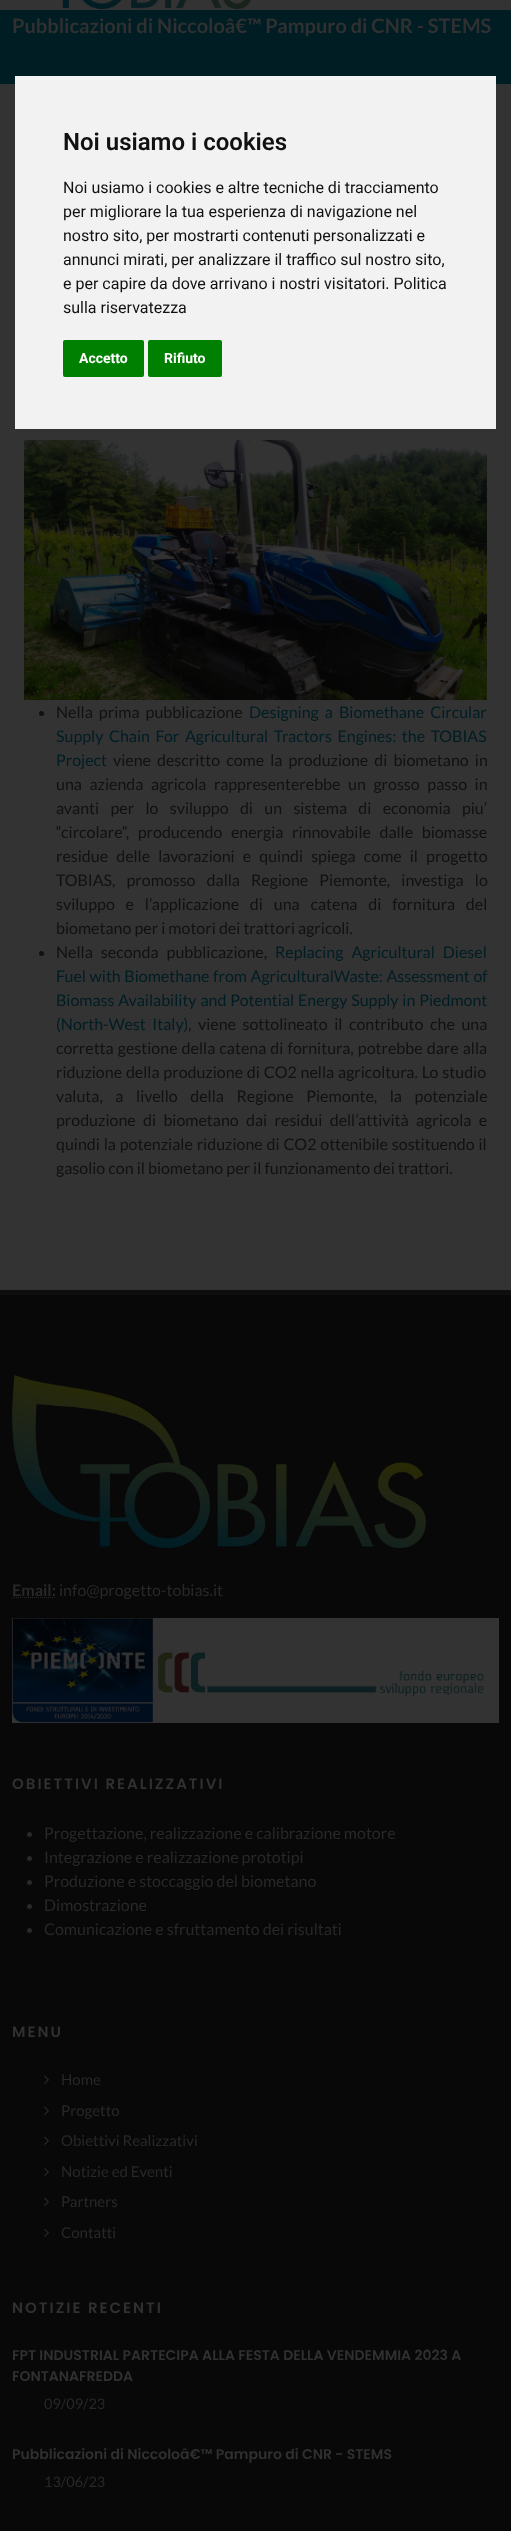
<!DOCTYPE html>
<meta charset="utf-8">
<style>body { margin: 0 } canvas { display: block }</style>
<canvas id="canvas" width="511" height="2531"></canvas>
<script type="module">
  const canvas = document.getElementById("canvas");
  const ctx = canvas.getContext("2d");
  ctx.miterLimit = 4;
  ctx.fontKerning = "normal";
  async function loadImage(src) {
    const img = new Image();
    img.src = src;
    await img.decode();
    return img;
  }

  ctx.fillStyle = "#333333";
  ctx.fillRect(0, 0, 511, 2531);
  ctx.drawImage(await loadImage("img1.png"), 62, 0, 190, 9);
  ctx.fillStyle = "#001d24";
  ctx.fillRect(0, 10, 511, 74);
  ctx.font = "bold 20px Lato";
  ctx.fillStyle = "#303030";
  ctx.fillText("Pubblicazioni di Niccoloâ€™ Pampuro di CNR - STEMS", 12, 33);
  ctx.fillRect(12, 375, 487, 1);
  ctx.drawImage(await loadImage("img2.png"), 24, 440, 463, 260);
  ctx.fillStyle = "#111111";
  ctx.beginPath();
  ctx.arc(41.5, 713.5, 2.5, 0, Math.PI * 2);
  ctx.fill();
  ctx.wordSpacing = "3px";
  ctx.font = "16px Lato";
  ctx.fillText("Nella prima pubblicazione", 56, 718);
  ctx.fillStyle = "#001d24";
  ctx.fillText("Designing a Biomethane Circular", 249, 718);
  ctx.wordSpacing = "2.5px";
  ctx.fillText("Supply Chain For Agricultural Tractors Engines: the TOBIAS", 56, 742);
  ctx.wordSpacing = "0px";
  ctx.fillText("Project", 56, 766);
  ctx.wordSpacing = "3px";
  ctx.fillStyle = "#111111";
  ctx.fillText("viene descritto come la produzione di biometano in", 113, 766);
  ctx.wordSpacing = "4.5px";
  ctx.fillText("una azienda agricola rappresenterebbe un grosso passo in", 56, 790);
  ctx.wordSpacing = "8.25px";
  ctx.fillText("avanti per lo sviluppo di un sistema di economia piu’", 56, 814);
  ctx.wordSpacing = "5.5px";
  ctx.fillText("“circolare”, producendo energia rinnovabile dalle biomasse", 56, 838);
  ctx.wordSpacing = "5px";
  ctx.fillText("residue delle lavorazioni e quindi spiega come il progetto", 56, 862);
  ctx.wordSpacing = "8px";
  ctx.fillText("TOBIAS, promosso dalla Regione Piemonte, investiga lo", 56, 886);
  ctx.wordSpacing = "7.75px";
  ctx.fillText("sviluppo e l’applicazione di una catena di fornitura del", 56, 910);
  ctx.wordSpacing = "0px";
  ctx.fillText("biometano per i motori dei trattori agricoli.", 56, 934);
  ctx.beginPath();
  ctx.arc(41.5, 953.5, 2.5, 0, Math.PI * 2);
  ctx.fill();
  ctx.wordSpacing = "5px";
  ctx.fillText("Nella seconda pubblicazione,", 56, 958);
  ctx.fillStyle = "#001d24";
  ctx.fillText("Replacing Agricultural Diesel", 275, 958);
  ctx.wordSpacing = "0.5px";
  ctx.fillText("Fuel with Biomethane from AgriculturalWaste: Assessment of", 56, 982);
  ctx.wordSpacing = "0.75px";
  ctx.fillText("Biomass Availability and Potential Energy Supply in Piedmont", 56, 1006);
  ctx.wordSpacing = "3.5px";
  ctx.fillText("(North-West Italy)", 56, 1030);
  ctx.fillStyle = "#111111";
  ctx.fillText(", viene sottolineato il contributo che una", 188, 1030);
  ctx.wordSpacing = "1px";
  ctx.fillText("corretta gestione della catena di fornitura, potrebbe dare alla", 56, 1054);
  ctx.wordSpacing = "0.75px";
  ctx.fillText("riduzione della produzione di CO2 nella agricoltura. Lo studio", 56, 1078);
  ctx.wordSpacing = "9.5px";
  ctx.fillText("valuta, a livello della Regione Piemonte, la potenziale", 56, 1102);
  ctx.wordSpacing = "4.25px";
  ctx.fillText("produzione di biometano dai residui dell’attività agricola e", 56, 1126);
  ctx.wordSpacing = "0.75px";
  ctx.fillText("quindi la potenziale riduzione di CO2 ottenibile sostituendo il", 56, 1150);
  ctx.wordSpacing = "0px";
  ctx.fillText("gasolio con il biometano per il funzionamento dei trattori.", 56, 1174);
  ctx.fillStyle = "#080808";
  ctx.fillRect(0, 1295, 511, 1236);
  ctx.fillStyle = "#0e0e0e";
  ctx.fillRect(0, 1290, 511, 5);
  ctx.drawImage(await loadImage("img3.png"), 12, 1375, 414, 173);
  ctx.font = "bold 16px Lato";
  ctx.fillStyle = "#282828";
  ctx.fillText("Email:", 12, 1596);
  ctx.beginPath();
  ctx.moveTo(12, 1597.5);
  ctx.lineTo(56, 1597.5);
  ctx.strokeStyle = "#282828";
  ctx.setLineDash([1, 1]);
  ctx.stroke();
  ctx.font = "16px Lato";
  ctx.fillText("info@progetto-tobias.it", 59, 1596);
  ctx.drawImage(await loadImage("img4.png"), 12, 1618, 487, 105);
  ctx.letterSpacing = "2px";
  ctx.font = "600 15px Poppins";
  ctx.fillStyle = "#303030";
  ctx.fillText("OBIETTIVI REALIZZATIVI", 12, 1789);
  ctx.fillStyle = "#282828";
  ctx.beginPath();
  ctx.arc(29.5, 1834.5, 2.5, 0, Math.PI * 2);
  ctx.fill();
  ctx.letterSpacing = "0px";
  ctx.font = "16px Lato";
  ctx.fillText("Progettazione, realizzazione e calibrazione motore", 44, 1839);
  ctx.beginPath();
  ctx.arc(29.5, 1858.5, 2.5, 0, Math.PI * 2);
  ctx.fill();
  ctx.fillText("Integrazione e realizzazione prototipi", 44, 1863);
  ctx.beginPath();
  ctx.arc(29.5, 1882.5, 2.5, 0, Math.PI * 2);
  ctx.fill();
  ctx.fillText("Produzione e stoccaggio del biometano", 44, 1887);
  ctx.beginPath();
  ctx.arc(29.5, 1906.5, 2.5, 0, Math.PI * 2);
  ctx.fill();
  ctx.fillText("Dimostrazione", 44, 1911);
  ctx.beginPath();
  ctx.arc(29.5, 1930.5, 2.5, 0, Math.PI * 2);
  ctx.fill();
  ctx.fillText("Comunicazione e sfruttamento dei risultati", 44, 1935);
  ctx.letterSpacing = "2px";
  ctx.font = "600 15px Poppins";
  ctx.fillStyle = "#303030";
  ctx.fillText("MENU", 12, 2037);
  ctx.drawImage(await loadImage("img5.png"), 44, 2075, 5, 9);
  ctx.letterSpacing = "0px";
  ctx.font = "15px Lato";
  ctx.fillStyle = "#282828";
  ctx.fillText("Home", 61, 2085);
  ctx.drawImage(await loadImage("img5.png"), 44, 2106, 5, 9);
  ctx.fillText("Progetto", 61, 2116);
  ctx.drawImage(await loadImage("img5.png"), 44, 2136, 5, 9);
  ctx.fillText("Obiettivi Realizzativi", 61, 2146);
  ctx.drawImage(await loadImage("img5.png"), 44, 2167, 5, 9);
  ctx.fillText("Notizie ed Eventi", 61, 2177);
  ctx.drawImage(await loadImage("img5.png"), 44, 2197, 5, 9);
  ctx.fillText("Partners", 61, 2207);
  ctx.drawImage(await loadImage("img5.png"), 44, 2228, 5, 9);
  ctx.fillText("Contatti", 61, 2238);
  ctx.letterSpacing = "2px";
  ctx.font = "600 15px Poppins";
  ctx.fillStyle = "#303030";
  ctx.fillText("NOTIZIE RECENTI", 12, 2313);
  ctx.letterSpacing = "0px";
  ctx.font = "600 14px Poppins";
  ctx.fillText("FPT INDUSTRIAL PARTECIPA ALLA FESTA DELLA VENDEMMIA 2023 A", 12, 2360);
  ctx.fillText("FONTANAFREDDA", 12, 2381);
  ctx.font = "14.5px Lato";
  ctx.fillStyle = "#282828";
  ctx.fillText("09/09/23", 44, 2409);
  ctx.font = "600 14px Poppins";
  ctx.fillStyle = "#303030";
  ctx.fillText("Pubblicazioni di Niccoloâ€™ Pampuro di CNR - STEMS", 12, 2459);
  ctx.font = "14.5px Lato";
  ctx.fillStyle = "#282828";
  ctx.fillText("13/06/23", 44, 2487);
  ctx.fillStyle = "#f2f2f2";
  ctx.fillRect(15, 76, 481, 353);
  ctx.font = "600 24px Roboto";
  ctx.fillStyle = "#111111";
  ctx.fillText("Noi usiamo i cookies", 63, 150);
  ctx.font = "16px Roboto";
  ctx.fillText("Noi usiamo i cookies e altre tecniche di tracciamento", 63, 193);
  ctx.fillText("per migliorare la tua esperienza di navigazione nel", 63, 217);
  ctx.fillText("nostro sito, per mostrarti contenuti personalizzati e", 63, 241);
  ctx.fillText("annunci mirati, per analizzare il traffico sul nostro sito,", 63, 265);
  ctx.fillText("e per capire da dove arrivano i nostri visitatori. Politica", 63, 289);
  ctx.fillText("sulla riservatezza", 63, 313);
  ctx.fillStyle = "#008000";
  ctx.beginPath();
  ctx.roundRect(63, 340, 81, 37, 2);
  ctx.fill();
  ctx.font = "bold 14px Roboto";
  ctx.fillStyle = "#ffffff";
  ctx.fillText("Accetto", 79, 363);
  ctx.fillStyle = "#008000";
  ctx.beginPath();
  ctx.roundRect(148, 340, 74, 37, 2);
  ctx.fill();
  ctx.fillStyle = "#ffffff";
  ctx.fillText("Rifiuto", 164, 363);
</script>
